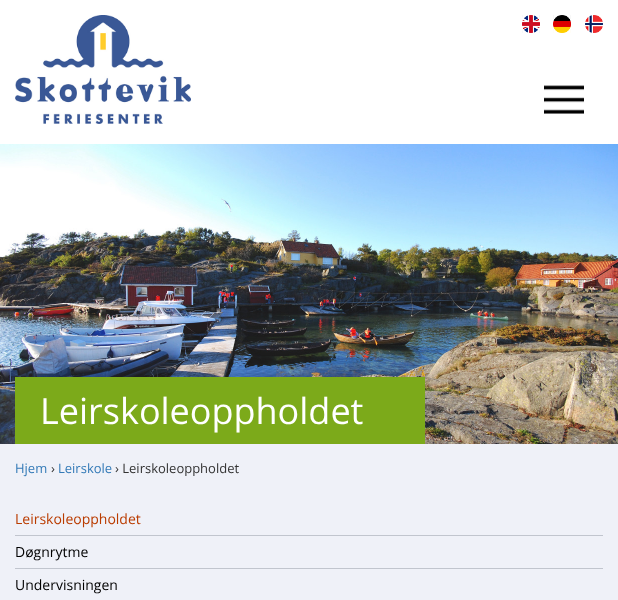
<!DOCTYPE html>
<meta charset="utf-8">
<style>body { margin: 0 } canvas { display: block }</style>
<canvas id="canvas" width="618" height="600"></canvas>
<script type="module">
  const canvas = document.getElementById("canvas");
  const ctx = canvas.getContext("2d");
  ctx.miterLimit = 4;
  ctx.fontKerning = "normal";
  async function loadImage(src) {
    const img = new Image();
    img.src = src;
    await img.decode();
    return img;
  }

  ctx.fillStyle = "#eff1f8";
  ctx.fillRect(0, 0, 618, 600);
  ctx.fillStyle = "#ffffff";
  ctx.fillRect(0, 0, 618, 144);
  ctx.drawImage(await loadImage("img1.png"), 15, 15, 176, 109);
  ctx.drawImage(await loadImage("img2.png"), 522, 15, 18, 18);
  ctx.drawImage(await loadImage("img3.png"), 553, 15, 18, 18);
  ctx.drawImage(await loadImage("img4.png"), 585, 15, 18, 18);
  ctx.drawImage(await loadImage("img5.png"), 544, 85, 40, 29);
  ctx.drawImage(await loadImage("img6.png"), 0, 144, 618, 300);
  ctx.fillStyle = "#7caa1a";
  ctx.fillRect(15, 377, 410, 67);
  ctx.font = "36px Open Sans";
  ctx.fillStyle = "#ffffff";
  ctx.fillText("Leirskoleoppholdet", 40, 424);
  ctx.font = "13px Open Sans";
  ctx.fillStyle = "#337ab7";
  ctx.fillText("Hjem", 15, 473);
  ctx.fillStyle = "#333333";
  ctx.fillText("›", 51, 473);
  ctx.fillStyle = "#337ab7";
  ctx.fillText("Leirskole", 58, 473);
  ctx.fillStyle = "#333333";
  ctx.fillText("› Leirskoleoppholdet", 115, 473);
  ctx.fillStyle = "#c1c5ce";
  ctx.fillRect(15, 535, 588, 1);
  ctx.font = "14px Open Sans";
  ctx.fillStyle = "#ba3c00";
  ctx.fillText("Leirskoleoppholdet", 15, 524);
  ctx.fillStyle = "#c1c5ce";
  ctx.fillRect(15, 568, 588, 1);
  ctx.fillStyle = "#000000";
  ctx.fillText("Døgnrytme", 15, 557);
  ctx.fillText("Undervisningen", 15, 590);
</script>
